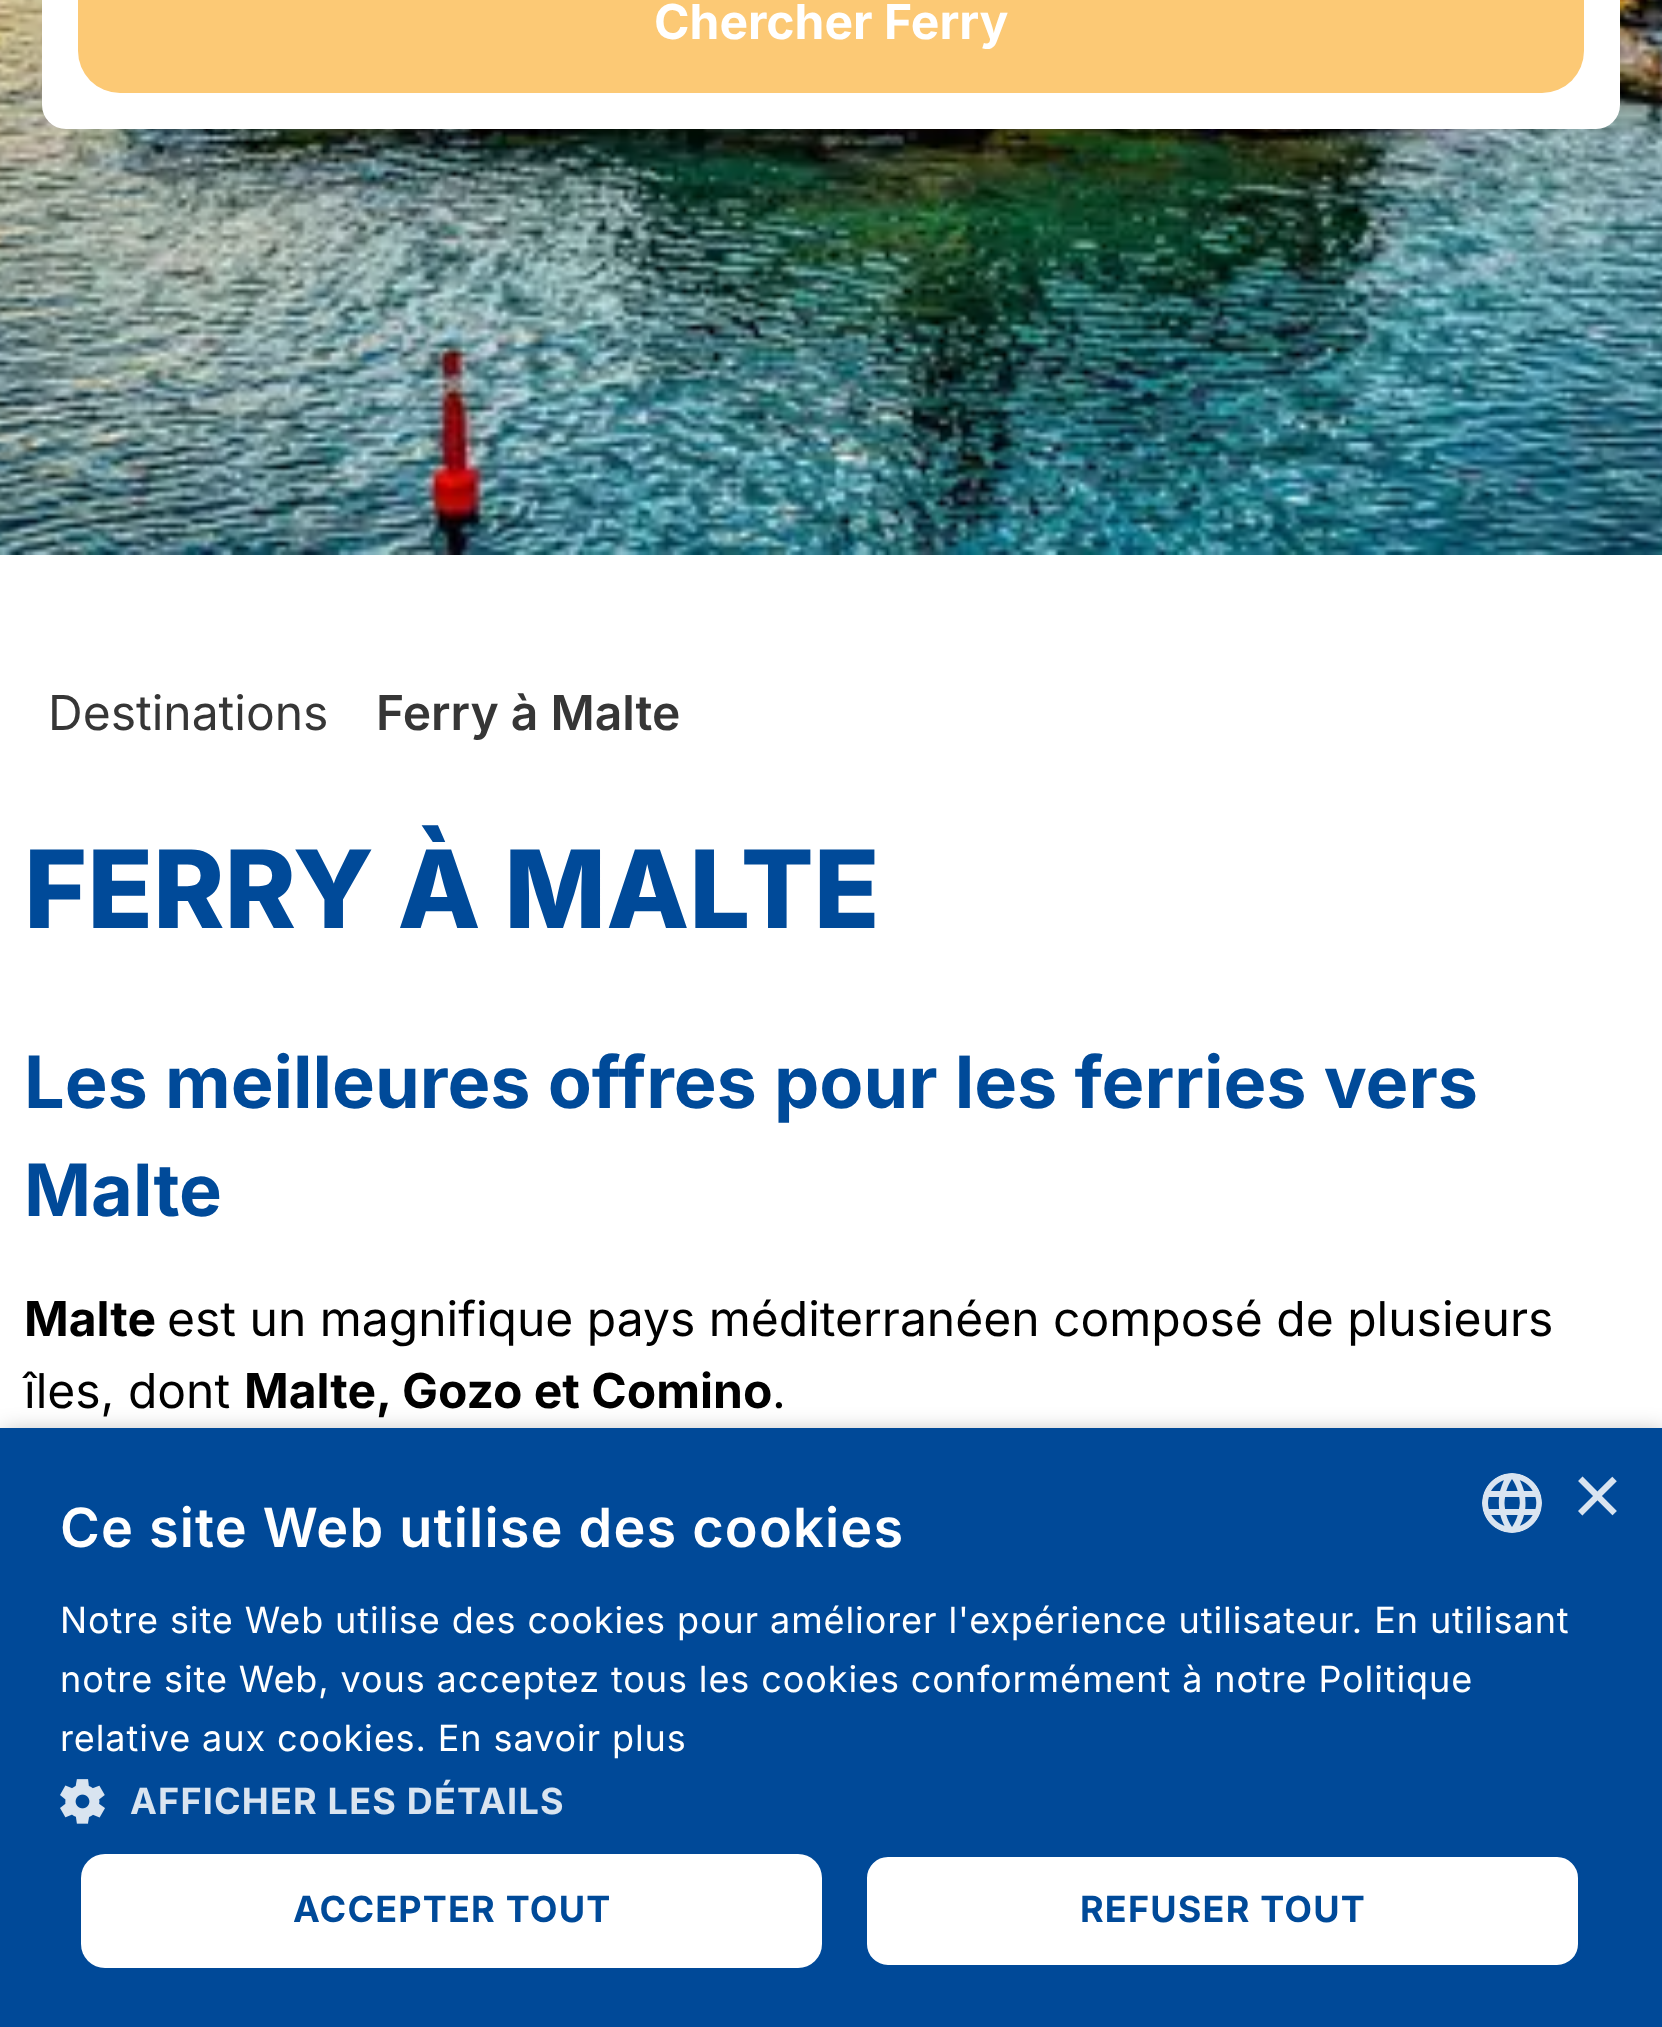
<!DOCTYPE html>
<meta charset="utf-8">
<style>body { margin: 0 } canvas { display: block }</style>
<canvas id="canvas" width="1662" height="2027"></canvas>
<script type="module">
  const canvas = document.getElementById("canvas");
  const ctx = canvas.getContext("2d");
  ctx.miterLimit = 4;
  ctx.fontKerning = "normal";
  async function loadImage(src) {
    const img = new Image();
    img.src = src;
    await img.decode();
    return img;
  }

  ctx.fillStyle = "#ffffff";
  ctx.fillRect(0, 0, 1662, 2027);
  ctx.drawImage(await loadImage("img1.png"), 0, 0, 1662, 555);
  ctx.beginPath();
  ctx.roundRect(42, -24, 1578, 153, 24);
  ctx.fill();
  ctx.fillStyle = "#fcc975";
  ctx.beginPath();
  ctx.roundRect(78, -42, 1506, 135, 42);
  ctx.fill();
  ctx.font = "bold 48px Inter";
  ctx.fillStyle = "#ffffff";
  ctx.fillText("Chercher Ferry", 654, 39);
  ctx.font = "48px Inter";
  ctx.fillStyle = "#363636";
  ctx.fillText("Destinations", 48, 730);
  ctx.font = "600 48px Inter";
  ctx.fillText("Ferry à Malte", 376, 730);
  ctx.font = "800 108px Inter";
  ctx.fillStyle = "#004a99";
  ctx.fillText("FERRY À MALTE", 24, 928);
  ctx.font = "bold 72px Inter";
  ctx.fillText("Les meilleures offres pour les ferries vers", 24, 1108);
  ctx.fillText("Malte", 24, 1216);
  ctx.font = "bold 48px Inter";
  ctx.fillStyle = "#000000";
  ctx.fillText("Malte", 24, 1336);
  ctx.font = "48px Inter";
  ctx.fillText("est un magnifique pays méditerranéen composé de plusieurs", 167, 1336);
  ctx.fillText("îles, dont", 24, 1408);
  ctx.font = "bold 48px Inter";
  ctx.fillText("Malte, Gozo et Comino", 244, 1408);
  ctx.font = "48px Inter";
  ctx.fillText(".", 772, 1408);
  ctx.fillStyle = "rgba(0, 0, 0, 0.35)";
  ctx.filter = "blur(12px)";
  ctx.beginPath();
  ctx.rect(3, 1434, 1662, 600);
  ctx.fill();
  ctx.filter = "none";
  ctx.fillStyle = "#004998";
  ctx.fillRect(0, 1428, 1662, 599);
  ctx.drawImage(await loadImage("img2.png"), 1482, 1473, 60, 60);
  ctx.font = "87px Liberation Sans";
  ctx.fillStyle = "#d9e4f0";
  ctx.fillText("×", 1572, 1525);
  ctx.letterSpacing = "1.2px";
  ctx.font = "600 54px Inter";
  ctx.fillStyle = "#ffffff";
  ctx.fillText("Ce site Web utilise des cookies", 60, 1547);
  ctx.letterSpacing = "0.9px";
  ctx.font = "36px Inter";
  ctx.fillText("Notre site Web utilise des cookies pour améliorer l'expérience utilisateur. En utilisant", 60, 1633);
  ctx.fillText("notre site Web, vous acceptez tous les cookies conformément à notre Politique", 60, 1692);
  ctx.fillText("relative aux cookies. En savoir plus", 60, 1751);
  ctx.drawImage(await loadImage("img3.png"), 60, 1779, 45, 45);
  ctx.letterSpacing = "1.2px";
  ctx.font = "bold 36px Inter";
  ctx.fillStyle = "#d9e4f0";
  ctx.fillText("AFFICHER LES DÉTAILS", 130, 1814);
  ctx.fillStyle = "#ffffff";
  ctx.beginPath();
  ctx.roundRect(81, 1854, 741, 114, 24);
  ctx.fill();
  ctx.fillStyle = "#004a99";
  ctx.fillText("ACCEPTER TOUT", 293, 1922);
  ctx.fillStyle = "#ffffff";
  ctx.beginPath();
  ctx.roundRect(865.5, 1855.5, 714, 111, 22.5);
  ctx.fill();
  ctx.strokeStyle = "#004998";
  ctx.lineWidth = 3;
  ctx.stroke();
  ctx.fillStyle = "#004a99";
  ctx.fillText("REFUSER TOUT", 1080, 1922);
</script>
